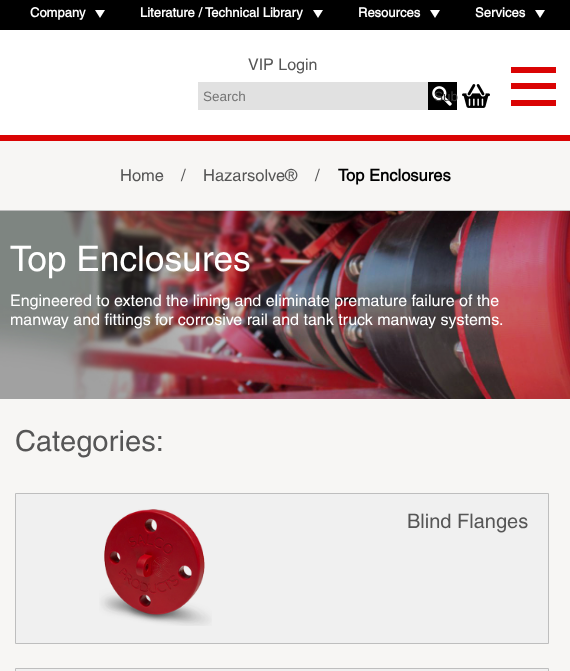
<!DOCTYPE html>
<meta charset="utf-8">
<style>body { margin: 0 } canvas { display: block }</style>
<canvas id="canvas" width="570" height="671"></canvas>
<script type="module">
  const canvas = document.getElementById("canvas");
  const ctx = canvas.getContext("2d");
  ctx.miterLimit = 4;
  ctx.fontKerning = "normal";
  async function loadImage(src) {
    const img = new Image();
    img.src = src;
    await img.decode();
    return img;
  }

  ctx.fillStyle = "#f7f6f4";
  ctx.fillRect(0, 0, 570, 671);
  ctx.fillStyle = "#ffffff";
  ctx.fillRect(0, 30, 570, 105);
  ctx.fillStyle = "#000000";
  ctx.fillRect(0, 0, 570, 30);
  ctx.font = "bold 13px Helvetica";
  ctx.fillStyle = "#ffffff";
  ctx.fillText("Company", 30, 17);
  ctx.beginPath();
  ctx.moveTo(95, 10);
  ctx.lineTo(105, 10);
  ctx.lineTo(100, 18);
  ctx.closePath();
  ctx.fill();
  ctx.fillText("Literature / Technical Library", 140, 17);
  ctx.beginPath();
  ctx.moveTo(313, 10);
  ctx.lineTo(323, 10);
  ctx.lineTo(318, 18);
  ctx.closePath();
  ctx.fill();
  ctx.fillText("Resources", 358, 17);
  ctx.beginPath();
  ctx.moveTo(430, 10);
  ctx.lineTo(440, 10);
  ctx.lineTo(435, 18);
  ctx.closePath();
  ctx.fill();
  ctx.fillText("Services", 475, 17);
  ctx.beginPath();
  ctx.moveTo(535, 10);
  ctx.lineTo(545, 10);
  ctx.lineTo(540, 18);
  ctx.closePath();
  ctx.fill();
  ctx.font = "16px Helvetica";
  ctx.fillStyle = "#565656";
  ctx.fillText("VIP Login", 248, 70);
  ctx.fillStyle = "#e1e1e1";
  ctx.fillRect(198, 82, 230, 28);
  ctx.font = "13.5px Liberation Sans";
  ctx.fillStyle = "#757575";
  ctx.fillText("Search", 203, 101);
  ctx.fillStyle = "#000000";
  ctx.fillRect(428, 82, 29, 28);
  ctx.drawImage(await loadImage("img1.png"), 432, 86, 20, 20);
  ctx.fillStyle = "#3b3b3b";
  ctx.fillText("Sub", 434, 101);
  ctx.drawImage(await loadImage("img2.png"), 462, 84, 28, 24);
  ctx.fillStyle = "#da0404";
  ctx.fillRect(511, 100, 45, 6);
  ctx.fillRect(511, 67, 45, 6);
  ctx.fillRect(511, 83, 45, 6);
  ctx.fillRect(0, 135, 570, 6);
  ctx.fillStyle = "#bebebe";
  ctx.fillRect(0, 210, 570, 1);
  ctx.font = "16.5px Helvetica";
  ctx.fillStyle = "#565656";
  ctx.fillText("Home", 120, 181);
  ctx.fillText("/", 181, 181);
  ctx.fillText("Hazarsolve®", 203, 181);
  ctx.fillText("/", 315, 181);
  ctx.font = "bold 16.5px Helvetica";
  ctx.fillStyle = "#000000";
  ctx.fillText("Top Enclosures", 338, 181);
  ctx.drawImage(await loadImage("img3.png"), 0, 211, 570, 188);
  ctx.font = "35.25px Helvetica";
  ctx.fillStyle = "#ffffff";
  ctx.fillText("Top Enclosures", 10, 271);
  ctx.font = "16px Helvetica";
  ctx.fillText("Engineered to extend the lining and eliminate premature failure of the", 10, 306);
  ctx.fillText("manway and fittings for corrosive rail and tank truck manway systems.", 10, 325);
  ctx.font = "29px Helvetica";
  ctx.fillStyle = "#565656";
  ctx.fillText("Categories:", 15, 451);
  ctx.fillStyle = "#f0f0f0";
  ctx.beginPath();
  ctx.rect(15.5, 493.5, 533, 150);
  ctx.fill();
  ctx.strokeStyle = "#bebebe";
  ctx.stroke();
  ctx.drawImage(await loadImage("img4.png"), 99, 509, 113, 117);
  ctx.font = "20px Helvetica";
  ctx.fillStyle = "#565656";
  ctx.fillText("Blind Flanges", 407, 528);
  ctx.fillStyle = "#f0f0f0";
  ctx.beginPath();
  ctx.rect(15.5, 668.5, 533, 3);
  ctx.fill();
  ctx.stroke();
</script>
